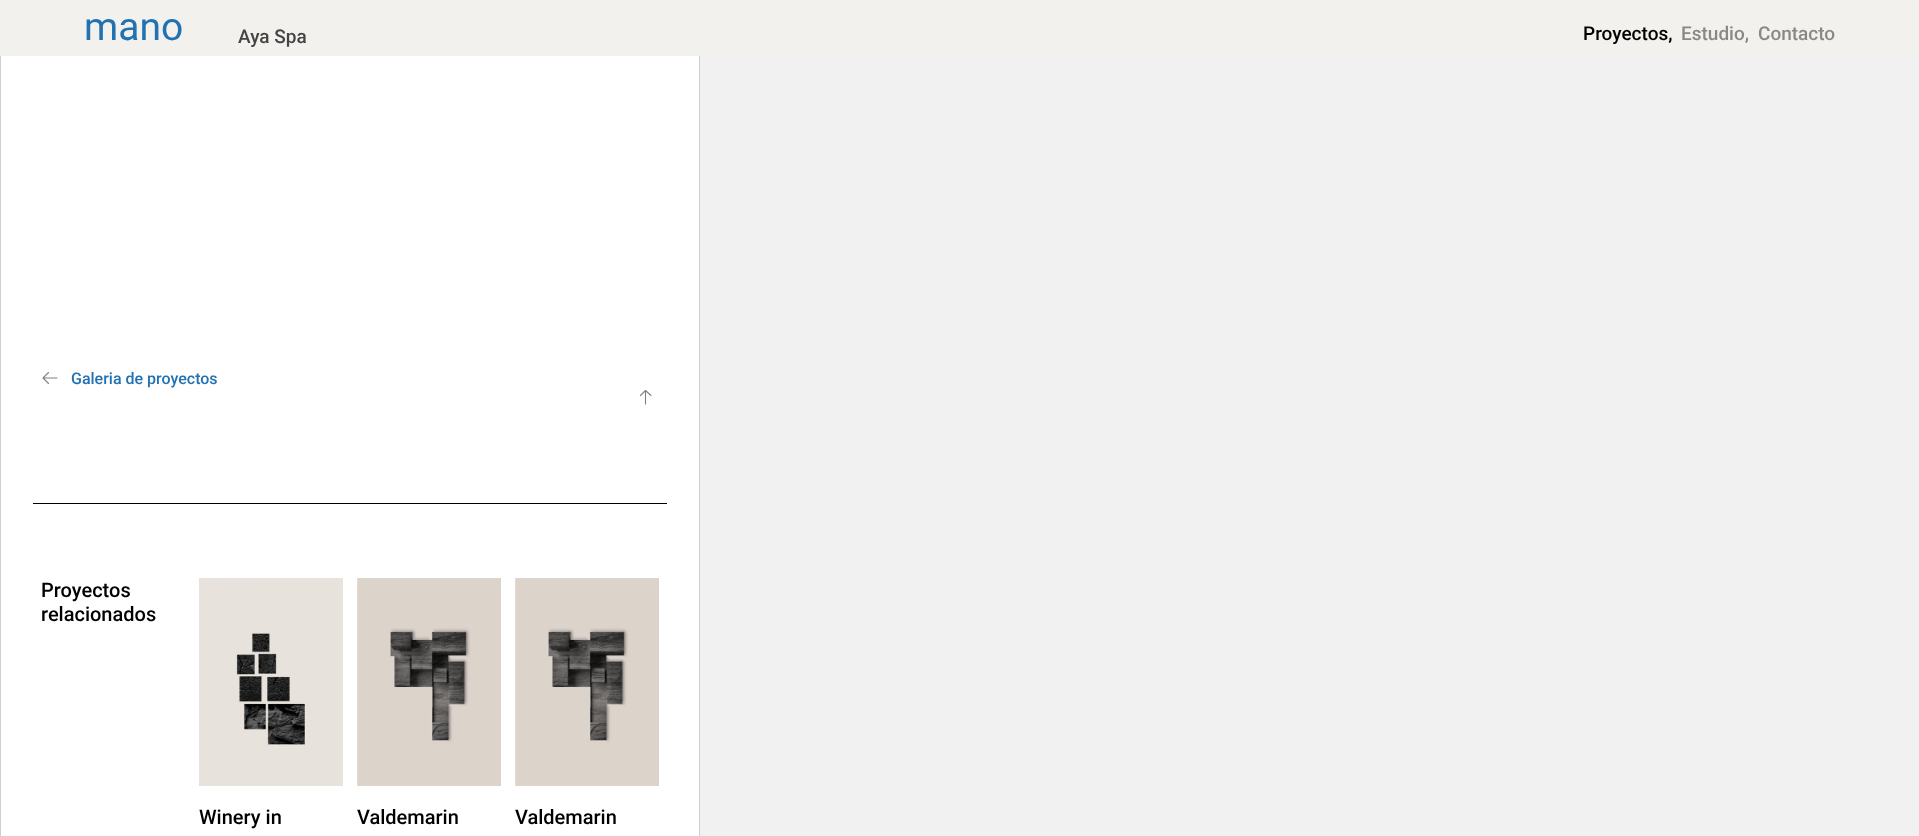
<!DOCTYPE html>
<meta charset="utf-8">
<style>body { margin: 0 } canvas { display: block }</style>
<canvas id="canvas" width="1919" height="836"></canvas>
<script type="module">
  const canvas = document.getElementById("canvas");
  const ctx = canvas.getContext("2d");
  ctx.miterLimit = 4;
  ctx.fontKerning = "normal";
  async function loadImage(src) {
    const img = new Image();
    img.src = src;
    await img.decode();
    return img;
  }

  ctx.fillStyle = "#f1f1f1";
  ctx.fillRect(0, 0, 1919, 836);
  ctx.fillStyle = "#ffffff";
  ctx.fillRect(1, 56, 698, 780);
  ctx.strokeStyle = "#ccd0d4";
  ctx.strokeRect(0.5, 0.5, 699, 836);
  ctx.fillStyle = "#f3f1ee";
  ctx.fillRect(0, 0, 1919, 56);
  ctx.font = "39px Roboto";
  ctx.fillStyle = "#2271b1";
  ctx.fillText("mano", 84, 40);
  ctx.font = "500 19px Roboto";
  ctx.fillStyle = "#000000";
  ctx.fillText("Proyectos,", 1583, 40);
  ctx.fillStyle = "#888888";
  ctx.fillText("Estudio,", 1681, 40);
  ctx.fillText("Contacto", 1758, 40);
  ctx.fillStyle = "#444444";
  ctx.fillText("Aya Spa", 238, 43);
  ctx.beginPath();
  ctx.moveTo(48.5, 383.5);
  ctx.lineTo(43, 378);
  ctx.moveTo(43, 378);
  ctx.lineTo(48.5, 372.5);
  ctx.moveTo(43, 378);
  ctx.lineTo(57, 378);
  ctx.strokeStyle = "#808080";
  ctx.lineWidth = 1.1;
  ctx.lineCap = "round";
  ctx.lineJoin = "round";
  ctx.stroke();
  ctx.font = "500 16px Roboto";
  ctx.fillStyle = "#2271b1";
  ctx.fillText("Galeria de proyectos", 71, 384);
  ctx.beginPath();
  ctx.moveTo(640.5, 395.5);
  ctx.lineTo(645.5, 390.5);
  ctx.moveTo(645.5, 390.5);
  ctx.lineTo(651, 395.5);
  ctx.moveTo(645.5, 390.5);
  ctx.lineTo(645.5, 404);
  ctx.stroke();
  ctx.fillStyle = "#000000";
  ctx.fillRect(33, 503, 634, 1);
  ctx.font = "500 20px Roboto";
  ctx.fillText("Proyectos", 41, 597);
  ctx.fillText("relacionados", 41, 621);
  ctx.drawImage(await loadImage("img1.png"), 199, 578, 144, 208);
  ctx.fillText("Winery in", 199, 824);
  ctx.drawImage(await loadImage("img2.png"), 357, 578, 144, 208);
  ctx.fillText("Valdemarin", 357, 824);
  ctx.drawImage(await loadImage("img2.png"), 515, 578, 144, 208);
  ctx.fillText("Valdemarin", 515, 824);
</script>
